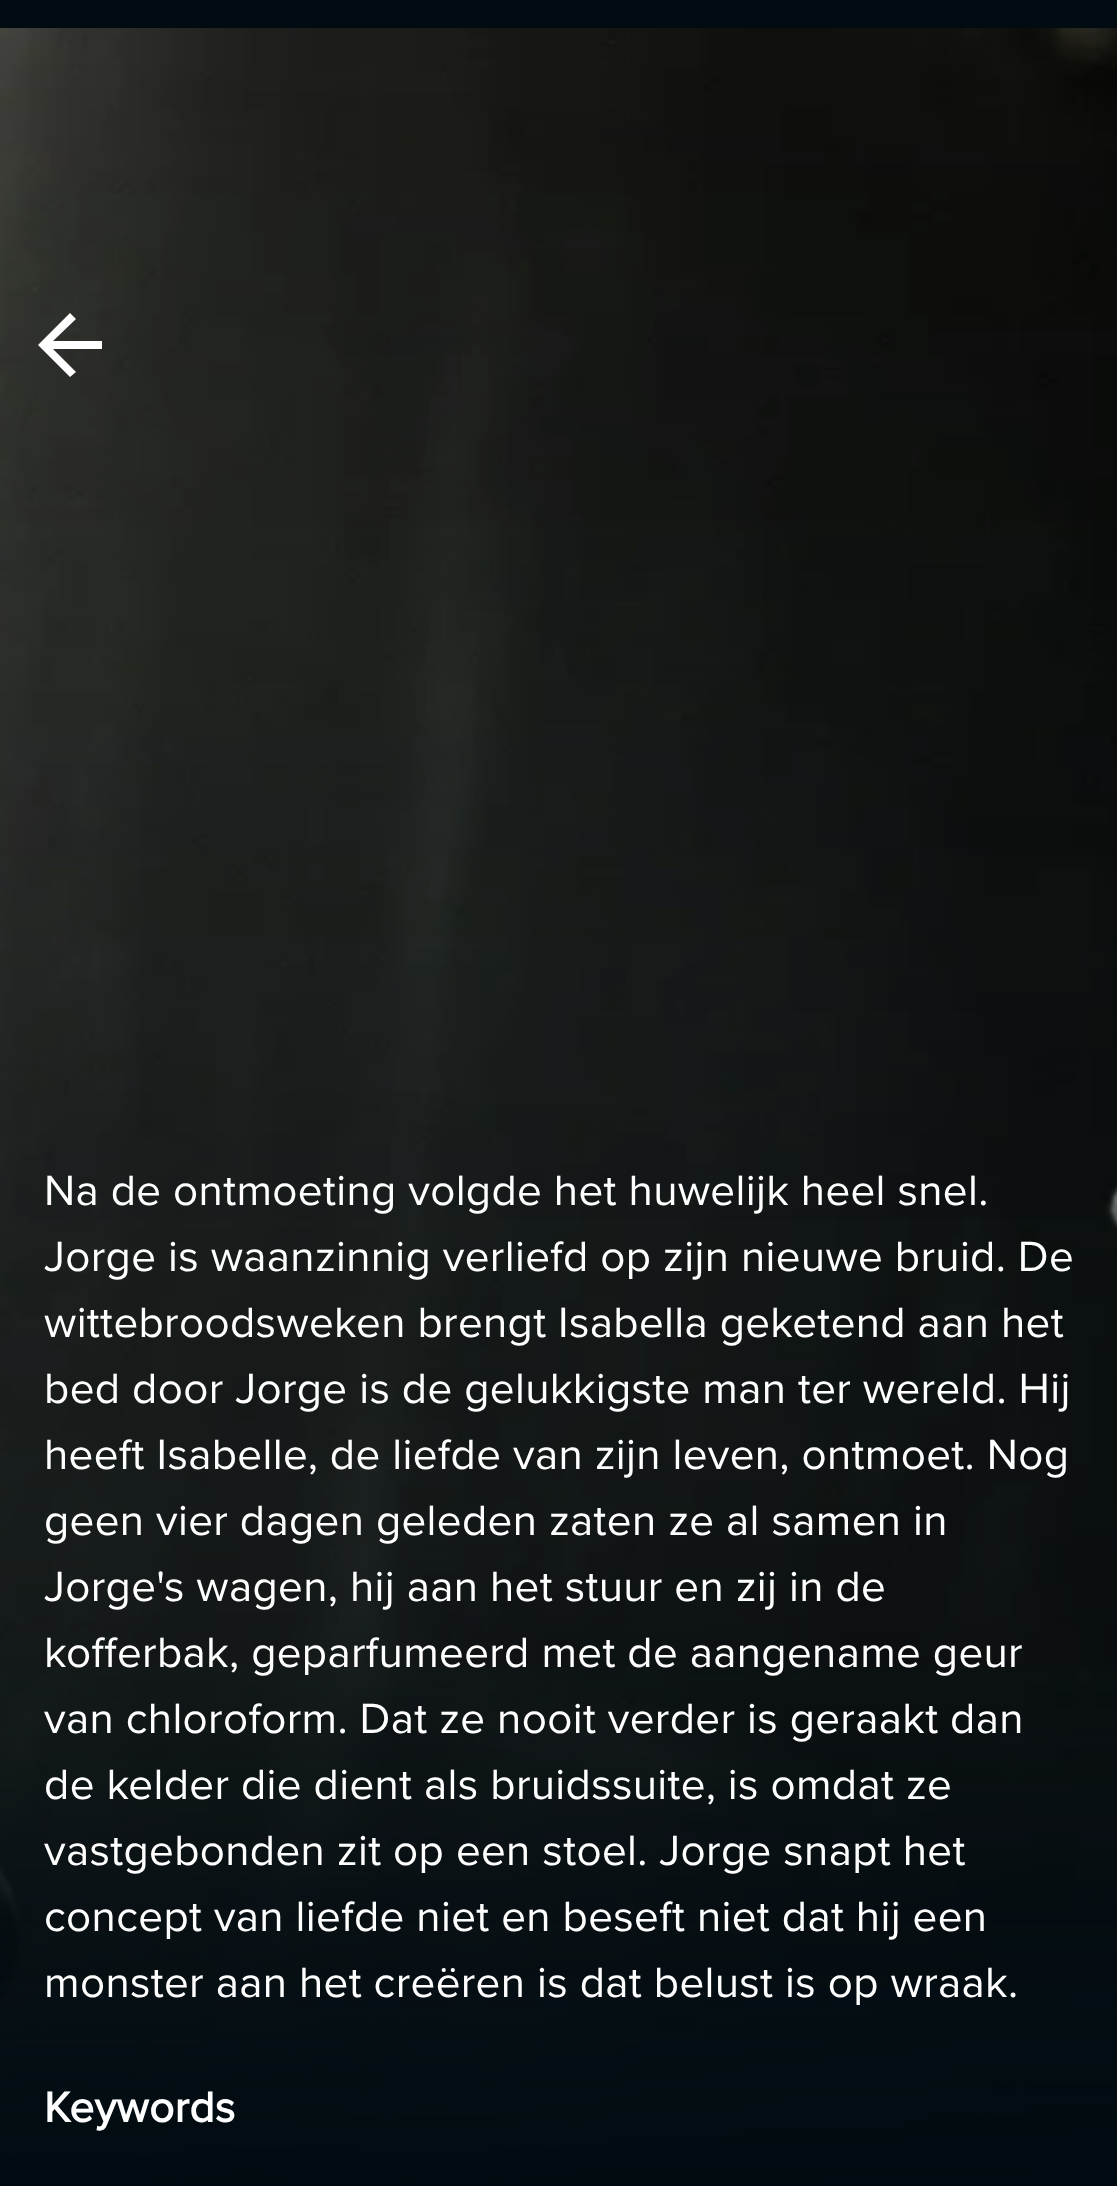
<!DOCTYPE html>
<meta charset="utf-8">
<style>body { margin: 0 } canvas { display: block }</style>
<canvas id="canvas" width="1117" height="2186"></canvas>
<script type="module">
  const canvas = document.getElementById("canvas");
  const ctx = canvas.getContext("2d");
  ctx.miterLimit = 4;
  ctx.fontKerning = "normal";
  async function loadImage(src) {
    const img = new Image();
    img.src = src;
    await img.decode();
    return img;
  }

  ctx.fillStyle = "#000b12";
  ctx.fillRect(0, 0, 1117, 2186);
  ctx.drawImage(await loadImage("img1.png"), 0, 28, 1117, 2158);
  ctx.fillStyle = "#ffffff";
  ctx.beginPath();
  ctx.moveTo(102, 341);
  ctx.lineTo(53, 341);
  ctx.lineTo(76, 319);
  ctx.lineTo(70, 313);
  ctx.lineTo(38, 345);
  ctx.lineTo(70, 377);
  ctx.lineTo(76, 372);
  ctx.lineTo(53, 349);
  ctx.lineTo(102, 349);
  ctx.closePath();
  ctx.fill();
  ctx.letterSpacing = "0.33px";
  ctx.font = "44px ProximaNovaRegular";
  ctx.fillText("Na de ontmoeting volgde het huwelijk heel snel.", 44, 1205);
  ctx.fillText("Jorge is waanzinnig verliefd op zijn nieuwe bruid. De", 44, 1271);
  ctx.fillText("wittebroodsweken brengt Isabella geketend aan het", 44, 1337);
  ctx.fillText("bed door Jorge is de gelukkigste man ter wereld. Hij", 44, 1403);
  ctx.fillText("heeft Isabelle, de liefde van zijn leven, ontmoet. Nog", 44, 1469);
  ctx.fillText("geen vier dagen geleden zaten ze al samen in", 44, 1535);
  ctx.fillText("Jorge's wagen, hij aan het stuur en zij in de", 44, 1601);
  ctx.fillText("kofferbak, geparfumeerd met de aangename geur", 44, 1667);
  ctx.fillText("van chloroform. Dat ze nooit verder is geraakt dan", 44, 1733);
  ctx.fillText("de kelder die dient als bruidssuite, is omdat ze", 44, 1799);
  ctx.fillText("vastgebonden zit op een stoel. Jorge snapt het", 44, 1865);
  ctx.fillText("concept van liefde niet en beseft niet dat hij een", 44, 1931);
  ctx.fillText("monster aan het creëren is dat belust is op wraak.", 44, 1997);
  ctx.font = "bold 44px ProximaNovaRegular";
  ctx.fillText("Keywords", 44, 2122);
</script>
